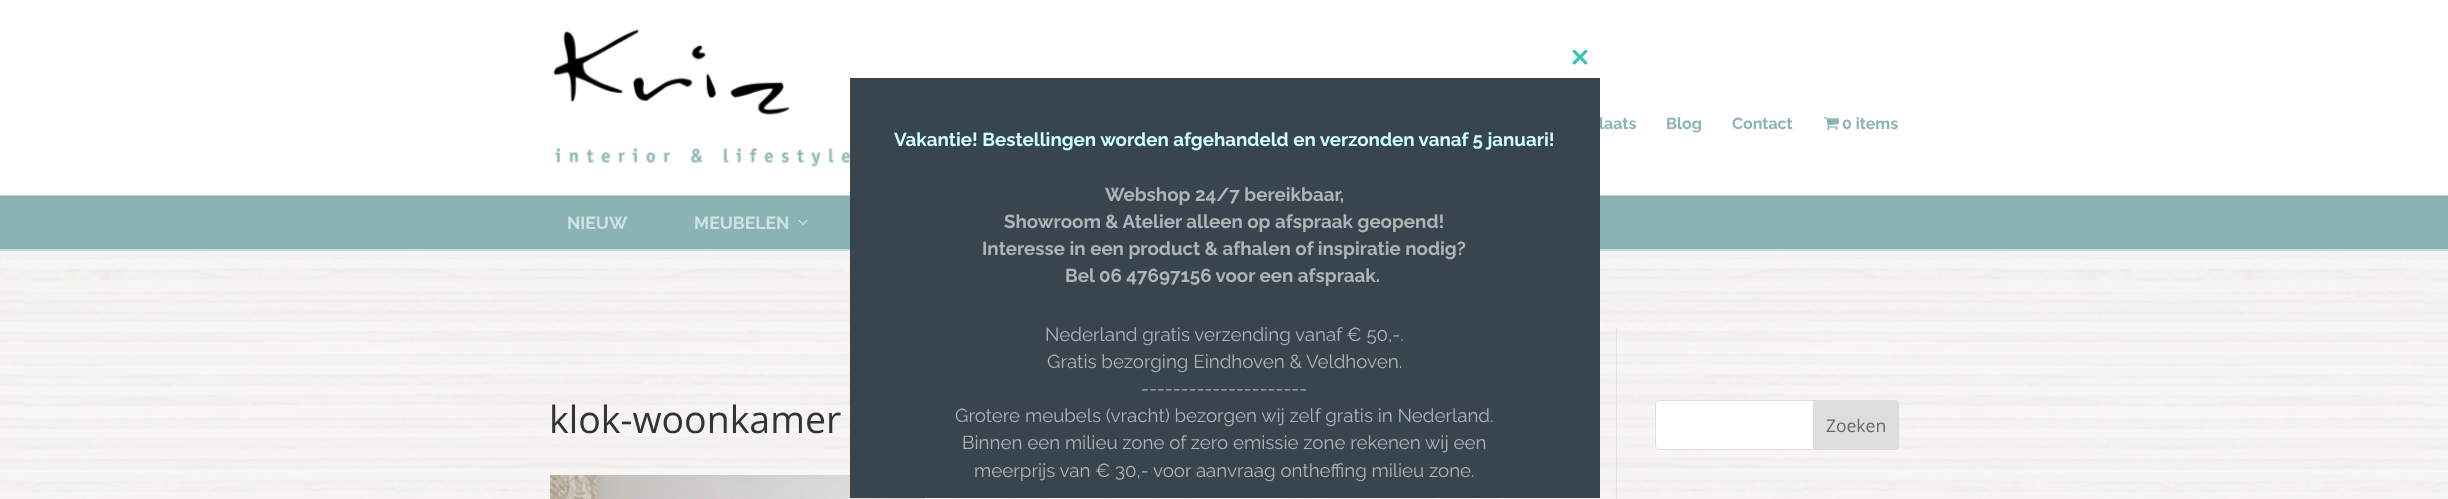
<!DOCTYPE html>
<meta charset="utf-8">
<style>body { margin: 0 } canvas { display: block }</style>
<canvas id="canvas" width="2448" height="499"></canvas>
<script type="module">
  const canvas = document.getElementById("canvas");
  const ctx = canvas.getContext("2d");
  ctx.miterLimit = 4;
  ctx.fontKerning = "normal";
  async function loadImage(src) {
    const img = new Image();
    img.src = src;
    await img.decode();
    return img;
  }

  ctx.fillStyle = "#ffffff";
  ctx.fillRect(0, 0, 2448, 499);
  ctx.drawImage(await loadImage("img1.png"), 0, 250, 2448, 249);
  ctx.fillStyle = "rgba(0, 0, 0, 0.1)";
  ctx.beginPath();
  ctx.moveTo(0, 250);
  ctx.lineTo(0, 251);
  ctx.lineTo(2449, 251);
  ctx.lineTo(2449, 1);
  ctx.lineTo(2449, 250);
  ctx.closePath();
  ctx.fill();
  ctx.drawImage(await loadImage("img2.png"), 553, 29, 297, 138);
  ctx.font = "100 16px Raleway";
  ctx.fillStyle = "#8ab4b4";
  ctx.fillText("laats", 1599, 129);
  ctx.fillText("Blog", 1666, 129);
  ctx.fillText("Contact", 1732, 129);
  ctx.drawImage(await loadImage("img3.png"), 1823, 117, 16, 13);
  ctx.fillText("0 items", 1842, 129);
  ctx.fillRect(0, 196, 2448, 53);
  ctx.font = "100 17.5px Raleway";
  ctx.fillStyle = "#d0e1e1";
  ctx.fillText("NIEUW", 567, 229);
  ctx.fillText("MEUBELEN", 694, 229);
  ctx.drawImage(await loadImage("img4.png"), 798, 219, 10, 6);
  ctx.fillStyle = "#c4d9d9";
  ctx.fillRect(0, 195, 2448, 1);
  ctx.fillRect(0, 249, 2448, 1);
  ctx.fillStyle = "#e2e2e2";
  ctx.fillRect(1616, 328, 1, 171);
  ctx.font = "37.5px Open Sans";
  ctx.fillStyle = "#333333";
  ctx.fillText("klok-woonkamer", 549, 433);
  ctx.drawImage(await loadImage("img5.png"), 550, 475, 375, 24);
  ctx.fillStyle = "#ffffff";
  ctx.beginPath();
  ctx.roundRect(1655.5, 400.5, 243, 49, 3.5);
  ctx.fill();
  ctx.strokeStyle = "#dddddd";
  ctx.stroke();
  ctx.fillStyle = "#dddddd";
  ctx.beginPath();
  ctx.roundRect(1813.5, 400.5, 85, 49, [0, 3.5, 3.5, 0]);
  ctx.fill();
  ctx.stroke();
  ctx.font = "17.5px Open Sans";
  ctx.fillStyle = "#666666";
  ctx.fillText("Zoeken", 1826, 432);
  ctx.fillStyle = "#38454e";
  ctx.fillRect(850, 78, 750, 420);
  ctx.drawImage(await loadImage("img6.png"), 1572, 49, 16, 16);
  ctx.font = "100 18.75px Raleway";
  ctx.fillStyle = "#ccffff";
  ctx.fillText("Vakantie! Bestellingen worden afgehandeld en verzonden vanaf 5 januari!", 894, 146);
  ctx.fillStyle = "#adb5b7";
  ctx.fillText("Webshop 24/7 bereikbaar,", 1105, 201);
  ctx.fillText("Showroom & Atelier alleen op afspraak geopend!", 1004, 228);
  ctx.fillText("Interesse in een product & afhalen of inspiratie nodig?", 982, 255);
  ctx.fillText("Bel 06 47697156 voor een afspraak.", 1065, 282);
  ctx.font = "100 18.75px 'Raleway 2'";
  ctx.fillText("Nederland gratis verzending vanaf € 50,-.", 1045, 341);
  ctx.fillText("Gratis bezorging Eindhoven & Veldhoven.", 1047, 368);
  ctx.fillText("---------------------", 1141, 395);
  ctx.fillText("Grotere meubels (vracht) bezorgen wij zelf gratis in Nederland.", 955, 422);
  ctx.fillText("Binnen een milieu zone of zero emissie zone rekenen wij een", 962, 449);
  ctx.fillText("meerprijs van € 30,- voor aanvraag ontheffing milieu zone.", 974, 477);
</script>
